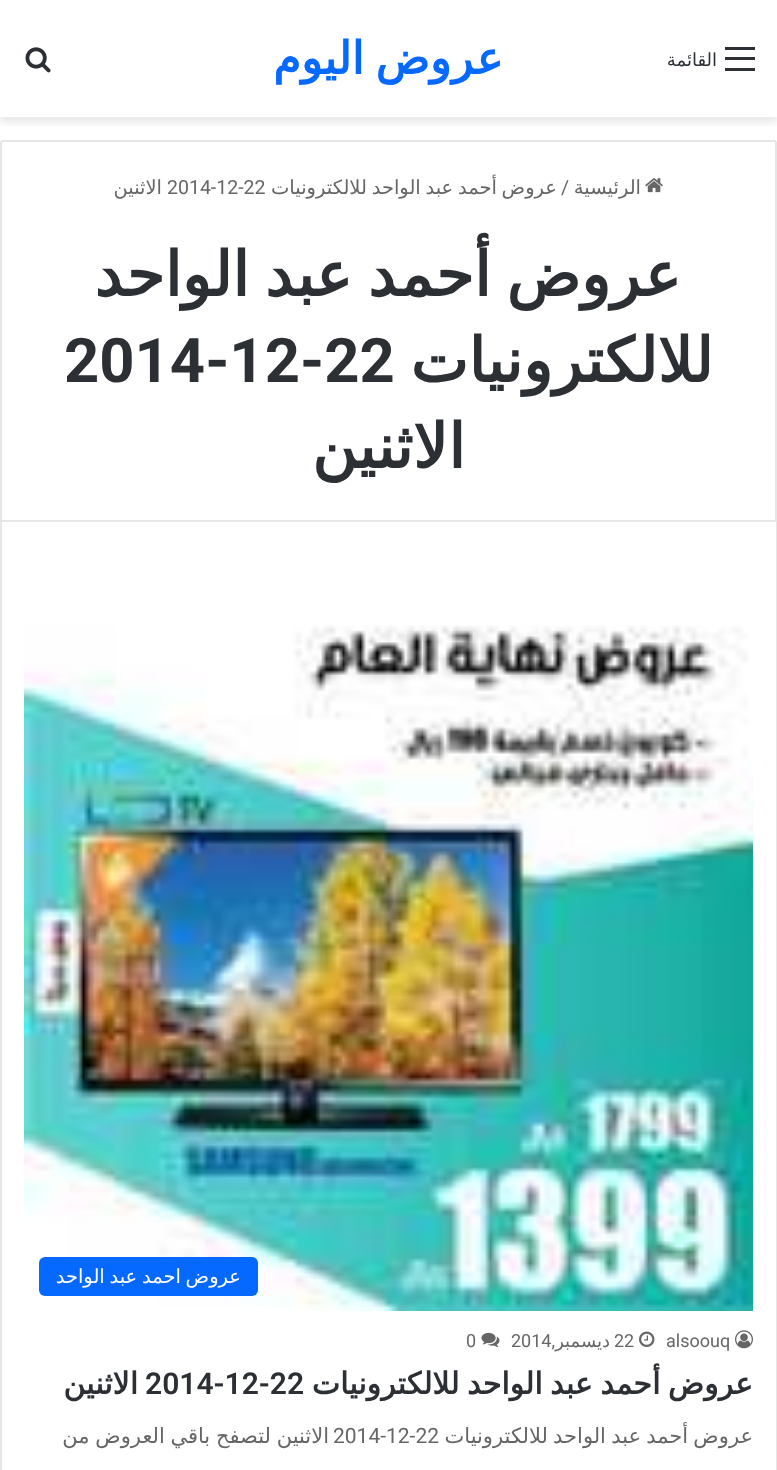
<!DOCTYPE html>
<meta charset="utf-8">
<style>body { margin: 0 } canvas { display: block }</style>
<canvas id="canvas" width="777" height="1470"></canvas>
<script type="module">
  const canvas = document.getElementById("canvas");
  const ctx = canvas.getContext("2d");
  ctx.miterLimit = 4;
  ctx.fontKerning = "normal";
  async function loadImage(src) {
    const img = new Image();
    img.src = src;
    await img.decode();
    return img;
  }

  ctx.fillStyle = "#ffffff";
  ctx.fillRect(0, 0, 777, 1470);
  ctx.save();
  ctx.beginPath();
  ctx.rect(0, 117, 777, 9);
  ctx.clip();
  ctx.fillStyle = "rgba(0, 0, 0, 0.1)";
  ctx.filter = "blur(5px)";
  ctx.beginPath();
  ctx.rect(0, 5, 777, 117);
  ctx.fill();
  ctx.filter = "none";
  ctx.restore();
  ctx.fillStyle = "#2c2f34";
  ctx.fillRect(725, 57, 30, 3);
  ctx.fillRect(725, 47, 30, 3);
  ctx.fillRect(725, 68, 30, 3);
  ctx.direction = "rtl";
  ctx.font = "18px DejaVu Sans";
  ctx.fillText("القائمة", 717, 66);
  ctx.wordSpacing = "-3px";
  ctx.font = "bold 45px DejaVu Sans";
  ctx.fillStyle = "#0669ff";
  ctx.fillText("عروض اليوم", 503, 74);
  ctx.drawImage(await loadImage("img1.png"), 25, 47, 26, 26);
  ctx.beginPath();
  ctx.roundRect(1, 141, 775, 380, [2, 2, 0, 0]);
  ctx.strokeStyle = "#e6e6e6";
  ctx.lineWidth = 2;
  ctx.stroke();
  ctx.drawImage(await loadImage("img2.png"), 645, 178, 18, 15);
  ctx.wordSpacing = "0px";
  ctx.font = "19.5px DejaVu Sans";
  ctx.fillStyle = "#666666";
  ctx.fillText("الرئيسية", 641, 194);
  ctx.direction = "ltr";
  ctx.font = "19.5px Roboto";
  ctx.fillText("/", 561, 194);
  ctx.wordSpacing = "-1.5px";
  ctx.direction = "rtl";
  ctx.font = "19.5px DejaVu Sans";
  ctx.fillText("عروض أحمد عبد الواحد للالكترونيات", 557, 194);
  ctx.wordSpacing = "0px";
  ctx.direction = "ltr";
  ctx.font = "19.5px Roboto";
  ctx.fillText("2014-12-22", 167, 194);
  ctx.direction = "rtl";
  ctx.font = "19.5px DejaVu Sans";
  ctx.fillText("الاثنين", 162, 194);
  ctx.wordSpacing = "-4px";
  ctx.font = "bold 61.5px DejaVu Sans";
  ctx.fillStyle = "#2c2f34";
  ctx.fillText("عروض أحمد عبد الواحد", 681, 296);
  ctx.wordSpacing = "0px";
  ctx.fillText("للالكترونيات", 713, 382);
  ctx.direction = "ltr";
  ctx.font = "bold 61.5px Roboto";
  ctx.fillText("2014-12-22", 64, 382);
  ctx.direction = "rtl";
  ctx.font = "bold 61.5px DejaVu Sans";
  ctx.fillText("الاثنين", 465, 468);
  ctx.fillStyle = "#e6e6e6";
  ctx.fillRect(776, 522, 1, 948);
  ctx.fillRect(0, 522, 2, 948);
  ctx.drawImage(await loadImage("img3.png"), 24, 625, 729, 686);
  ctx.fillStyle = "#0669ff";
  ctx.beginPath();
  ctx.roundRect(39, 1257, 219, 39, 6);
  ctx.fill();
  ctx.wordSpacing = "-1.5px";
  ctx.font = "19.5px DejaVu Sans";
  ctx.fillStyle = "#ffffff";
  ctx.fillText("عروض احمد عبد الواحد", 241, 1283);
  ctx.drawImage(await loadImage("img4.png"), 735, 1330, 18, 19);
  ctx.wordSpacing = "0px";
  ctx.direction = "ltr";
  ctx.font = "18px Roboto";
  ctx.fillStyle = "#666666";
  ctx.fillText("alsoouq", 666, 1347);
  ctx.drawImage(await loadImage("img5.png"), 639, 1331, 16, 16);
  ctx.fillText("22", 614, 1347);
  ctx.direction = "rtl";
  ctx.fillText(",", 555, 1347);
  ctx.font = "18px DejaVu Sans";
  ctx.fillText("ديسمبر", 610, 1347);
  ctx.direction = "ltr";
  ctx.font = "18px Roboto";
  ctx.fillText("2014", 511, 1347);
  ctx.drawImage(await loadImage("img6.png"), 481, 1332, 19, 15);
  ctx.fillText("0", 466, 1347);
  ctx.wordSpacing = "-2px";
  ctx.direction = "rtl";
  ctx.font = "bold 30px DejaVu Sans";
  ctx.fillStyle = "#2c2f34";
  ctx.fillText("عروض أحمد عبد الواحد للالكترونيات", 753, 1394);
  ctx.wordSpacing = "0px";
  ctx.direction = "ltr";
  ctx.font = "600 30px Roboto";
  ctx.fillText("2014-12-22", 145, 1394);
  ctx.direction = "rtl";
  ctx.font = "bold 30px DejaVu Sans";
  ctx.fillText("الاثنين", 138, 1394);
  ctx.wordSpacing = "-1.5px";
  ctx.font = "21px DejaVu Sans";
  ctx.fillStyle = "#666666";
  ctx.fillText("عروض أحمد عبد الواحد للالكترونيات", 753, 1443);
  ctx.wordSpacing = "0px";
  ctx.direction = "ltr";
  ctx.font = "21px Roboto";
  ctx.fillText("2014-12-22", 333, 1443);
  ctx.wordSpacing = "-1px";
  ctx.direction = "rtl";
  ctx.font = "21px DejaVu Sans";
  ctx.fillText("الاثنين لتصفح باقي العروض من", 329, 1443);
</script>
